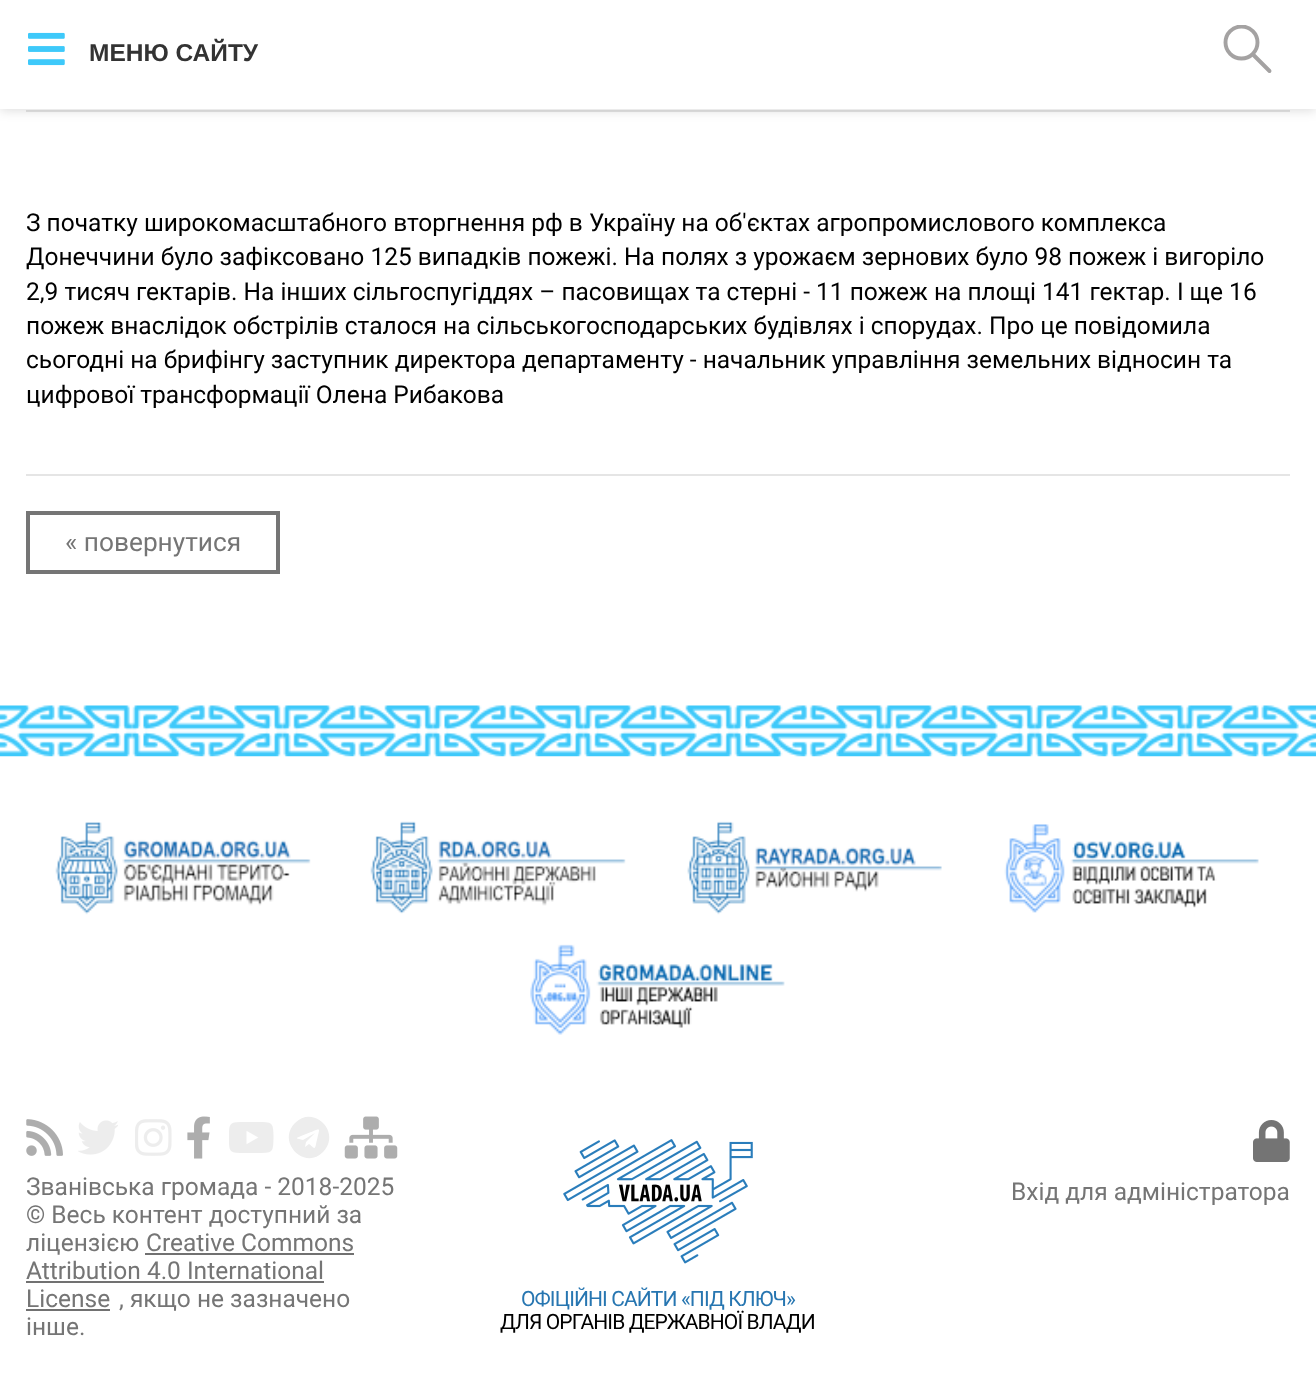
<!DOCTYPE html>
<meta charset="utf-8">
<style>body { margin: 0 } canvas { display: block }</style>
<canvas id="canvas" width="1316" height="1393"></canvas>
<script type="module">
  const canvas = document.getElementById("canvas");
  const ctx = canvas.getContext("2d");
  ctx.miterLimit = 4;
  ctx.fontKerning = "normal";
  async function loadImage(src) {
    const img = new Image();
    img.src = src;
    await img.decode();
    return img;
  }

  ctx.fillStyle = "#ffffff";
  ctx.fillRect(0, 0, 1316, 1393);
  ctx.fillStyle = "#e5e5e5";
  ctx.fillRect(26, 110, 1264, 2);
  ctx.fillStyle = "rgba(0, 0, 0, 0.15)";
  ctx.filter = "blur(6px)";
  ctx.beginPath();
  ctx.rect(0, 2, 1316, 108);
  ctx.fill();
  ctx.filter = "none";
  ctx.fillStyle = "#ffffff";
  ctx.fillRect(0, 0, 1316, 109);
  ctx.drawImage(await loadImage("img1.png"), 28, 32, 37, 34);
  ctx.font = "bold 24.5px Liberation Sans";
  ctx.fillStyle = "#333333";
  ctx.fillText("МЕНЮ САЙТУ", 89, 61);
  ctx.save();
  ctx.beginPath();
  ctx.rect(1223, 25, 49, 49);
  ctx.clip();
  ctx.beginPath();
  ctx.arc(1241.5, 42.5, 16, 0, Math.PI * 2);
  ctx.strokeStyle = "#a4a2a2";
  ctx.lineWidth = 3.9;
  ctx.stroke();
  ctx.restore();
  ctx.beginPath();
  ctx.moveTo(1253, 54.5);
  ctx.lineTo(1269.5, 71);
  ctx.strokeStyle = "#a4a2a2";
  ctx.lineWidth = 3.9;
  ctx.lineCap = "round";
  ctx.lineJoin = "round";
  ctx.stroke();
  ctx.font = "24.5px Roboto";
  ctx.fillStyle = "#000000";
  ctx.fillText("З початку широкомасштабного вторгнення рф в Україну на об'єктах агропромислового комплекса", 26, 231);
  ctx.fillText("Донеччини було зафіксовано 125 випадків пожежі. На полях з урожаєм зернових було 98 пожеж і вигоріло", 26, 265);
  ctx.fillText("2,9 тисяч гектарів. На інших сільгоспугіддях – пасовищах та стерні - 11 пожеж на площі 141 гектар. І ще 16", 26, 300);
  ctx.fillText("пожеж внаслідок обстрілів сталося на сільськогосподарських будівлях і спорудах. Про це повідомила", 26, 334);
  ctx.fillText("сьогодні на брифінгу заступник директора департаменту - начальник управління земельних відносин та", 26, 368);
  ctx.fillText("цифрової трансформації Олена Рибакова", 26, 403);
  ctx.fillStyle = "#e5e5e5";
  ctx.fillRect(26, 474, 1264, 2);
  ctx.strokeStyle = "#757575";
  ctx.lineWidth = 4;
  ctx.lineJoin = "miter";
  ctx.strokeRect(28, 513, 250, 59);
  ctx.font = "26.25px Roboto";
  ctx.fillStyle = "#757575";
  ctx.fillText("« повернутися", 65, 551);
  ctx.drawImage(await loadImage("img2.png"), 0, 705, 1316, 52);
  ctx.drawImage(await loadImage("img3.png"), 55, 822, 256, 93);
  ctx.drawImage(await loadImage("img4.png"), 370, 821, 256, 93);
  ctx.drawImage(await loadImage("img5.png"), 687, 821, 255, 94);
  ctx.drawImage(await loadImage("img6.png"), 1004, 824, 255, 89);
  ctx.drawImage(await loadImage("img7.png"), 530, 944, 255, 91);
  ctx.drawImage(await loadImage("img8.png"), 26, 1119, 37, 37);
  ctx.drawImage(await loadImage("img9.png"), 78, 1120, 40, 35);
  ctx.drawImage(await loadImage("img10.png"), 135, 1119, 37, 37);
  ctx.drawImage(await loadImage("img11.png"), 187, 1116, 23, 43);
  ctx.drawImage(await loadImage("img12.png"), 229, 1122, 45, 31);
  ctx.fillStyle = "#ededed";
  ctx.beginPath();
  ctx.moveTo(295, 1123);
  ctx.bezierCurveTo(314, 1104, 342, 1133, 323, 1152);
  ctx.bezierCurveTo(305, 1171, 276, 1142, 295, 1123);
  ctx.closePath();
  ctx.moveTo(319, 1131);
  ctx.bezierCurveTo(320, 1127, 312, 1132, 311, 1132);
  ctx.lineTo(301, 1136);
  ctx.bezierCurveTo(294, 1139, 297, 1138, 303, 1140);
  ctx.lineTo(315, 1133);
  ctx.lineTo(306, 1142);
  ctx.lineTo(305, 1147);
  ctx.lineTo(309, 1144);
  ctx.bezierCurveTo(313, 1147, 315, 1151, 316, 1144);
  ctx.closePath();
  ctx.fill();
  ctx.drawImage(await loadImage("img13.png"), 344, 1116, 54, 43);
  ctx.font = "24.5px Roboto";
  ctx.fillStyle = "#757575";
  ctx.fillText("Званівська громада - 2018-2025", 26, 1195);
  ctx.fillText("© Весь контент доступний за", 26, 1223);
  ctx.fillText("ліцензією", 26, 1251);
  ctx.fillText("Creative Commons", 146, 1251);
  ctx.fillStyle = "#717171";
  ctx.fillRect(145, 1253, 209, 2);
  ctx.fillStyle = "#757575";
  ctx.fillText("Attribution 4.0 International", 26, 1279);
  ctx.fillStyle = "#717171";
  ctx.fillRect(26, 1281, 298, 2);
  ctx.fillStyle = "#757575";
  ctx.fillText("License", 26, 1307);
  ctx.fillStyle = "#717171";
  ctx.fillRect(26, 1309, 84, 2);
  ctx.fillStyle = "#757575";
  ctx.fillText(", якщо не зазначено", 119, 1307);
  ctx.fillText("інше.", 26, 1335);
  ctx.drawImage(await loadImage("img14.png"), 1253, 1120, 37, 42);
  ctx.fillText("Вхід для адміністратора", 1011, 1200);
  ctx.drawImage(await loadImage("img15.png"), 563, 1139, 190, 125);
  ctx.letterSpacing = "-0.9px";
  ctx.font = "21px Roboto";
  ctx.fillStyle = "#2776b1";
  ctx.fillText("ОФІЦІЙНІ САЙТИ «ПІД КЛЮЧ»", 521, 1306);
  ctx.fillStyle = "#000000";
  ctx.fillText("ДЛЯ ОРГАНІВ ДЕРЖАВНОЇ ВЛАДИ", 500, 1329);
</script>
